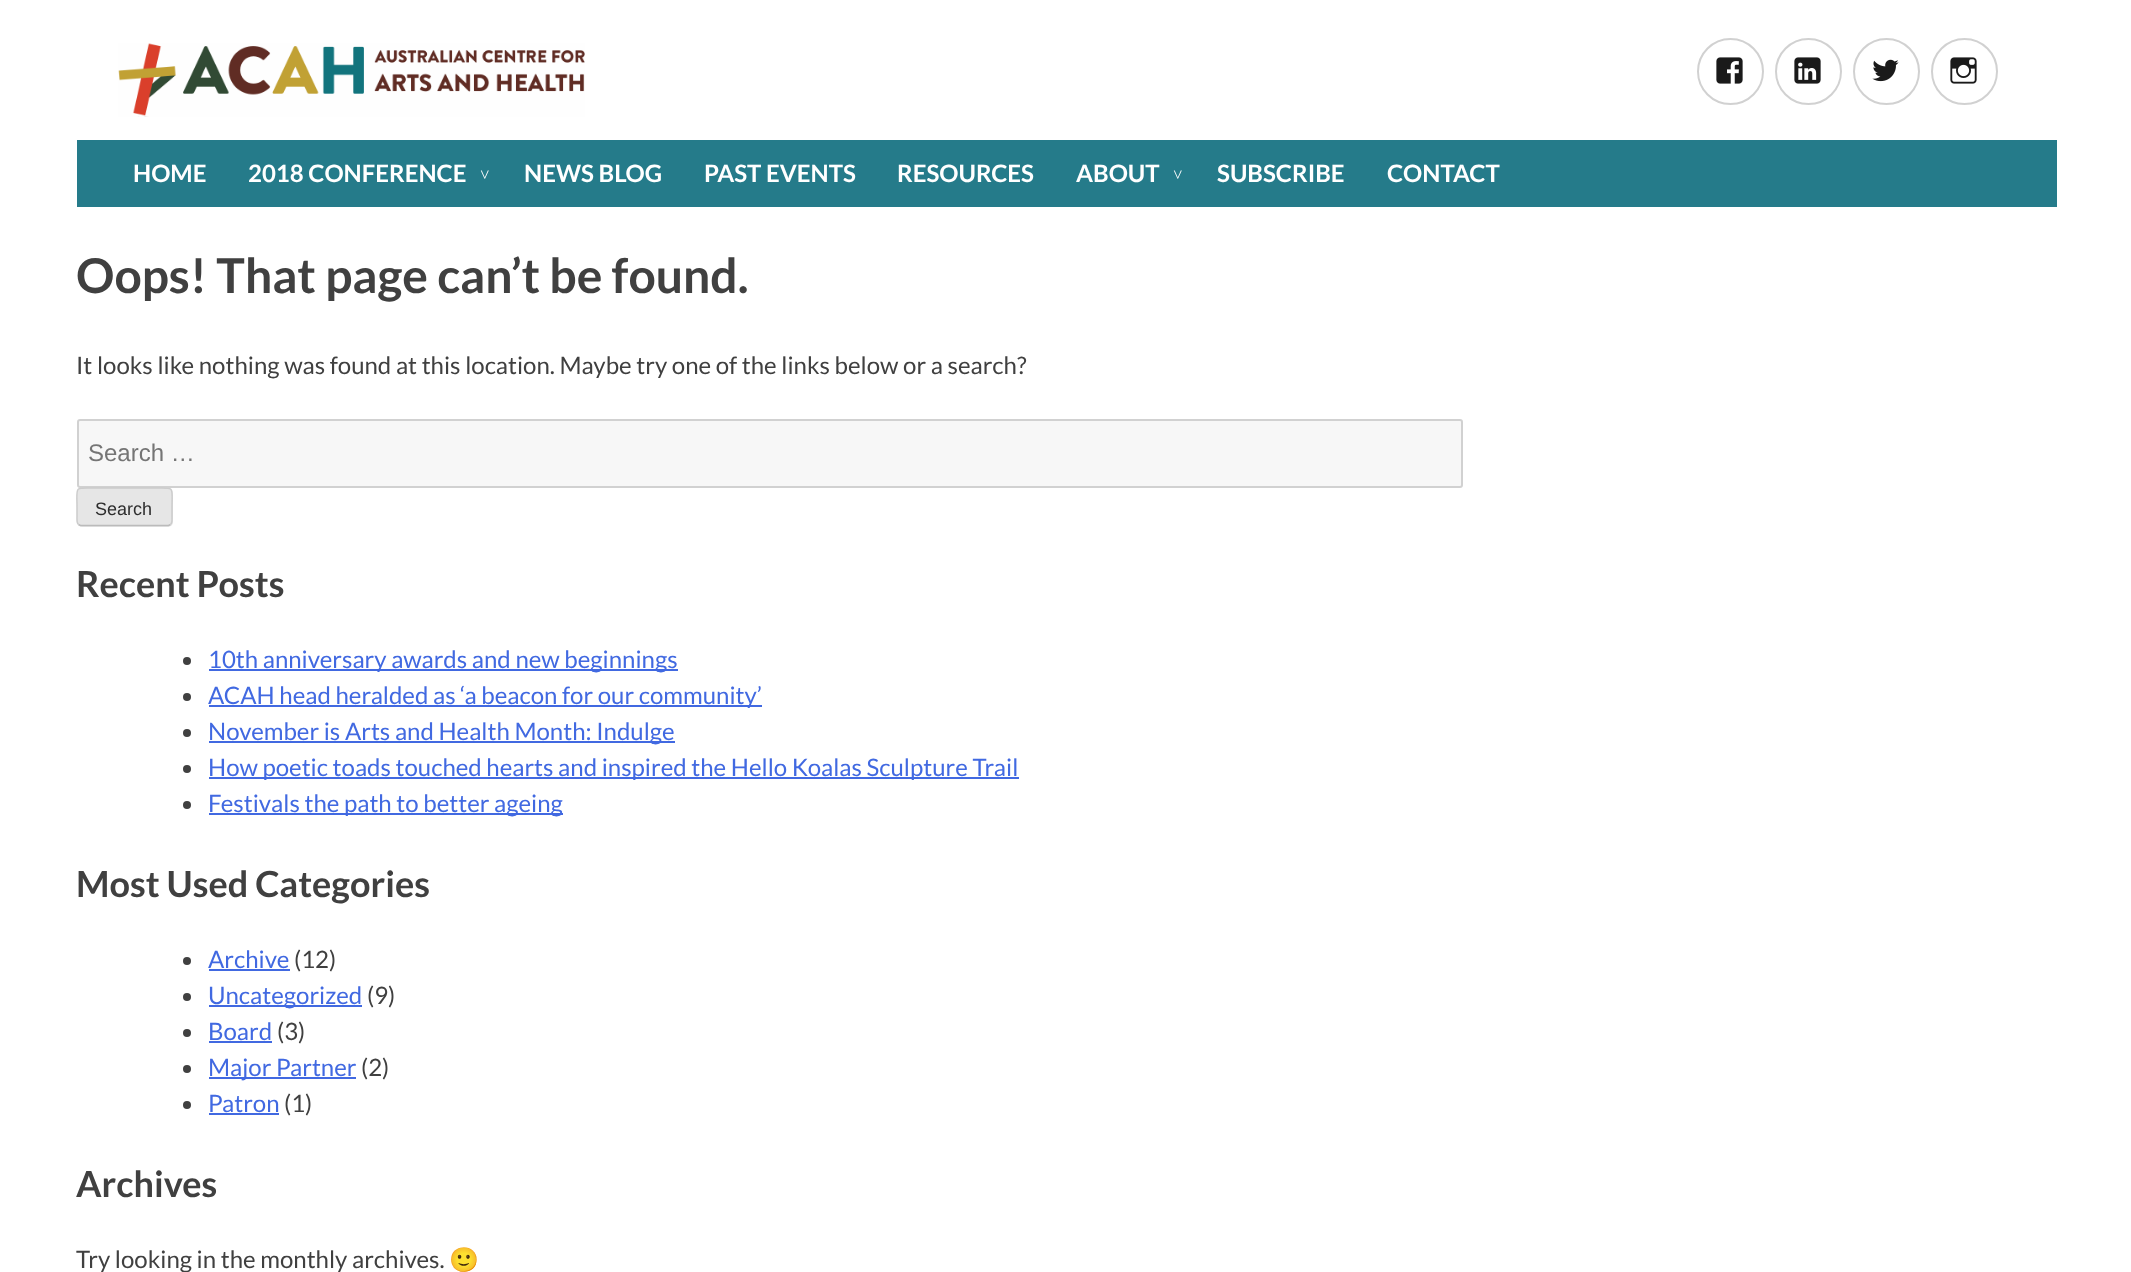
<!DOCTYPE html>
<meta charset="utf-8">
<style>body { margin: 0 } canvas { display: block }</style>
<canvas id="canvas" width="2131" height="1272"></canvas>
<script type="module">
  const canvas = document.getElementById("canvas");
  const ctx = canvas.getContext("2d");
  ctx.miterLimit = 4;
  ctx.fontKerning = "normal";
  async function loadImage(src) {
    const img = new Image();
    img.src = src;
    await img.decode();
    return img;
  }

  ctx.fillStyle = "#ffffff";
  ctx.fillRect(0, 0, 2131, 1272);
  ctx.drawImage(await loadImage("img1.png"), 118, 43, 467, 74);
  ctx.beginPath();
  ctx.arc(1730.5, 71.5, 32.5, 0, Math.PI * 2);
  ctx.strokeStyle = "#d1d1d1";
  ctx.lineWidth = 2;
  ctx.stroke();
  ctx.drawImage(await loadImage("img2.png"), 1716, 57, 27, 27);
  ctx.beginPath();
  ctx.arc(1808.5, 71.5, 32.5, 0, Math.PI * 2);
  ctx.stroke();
  ctx.drawImage(await loadImage("img3.png"), 1794, 57, 27, 27);
  ctx.beginPath();
  ctx.arc(1886.5, 71.5, 32.5, 0, Math.PI * 2);
  ctx.stroke();
  ctx.drawImage(await loadImage("img4.png"), 1872, 59, 27, 23);
  ctx.beginPath();
  ctx.arc(1964.5, 71.5, 32.5, 0, Math.PI * 2);
  ctx.stroke();
  ctx.drawImage(await loadImage("img5.png"), 1950, 57, 27, 27);
  ctx.fillStyle = "#257b8a";
  ctx.fillRect(77, 140, 1980, 67);
  ctx.font = "bold 24px Lato";
  ctx.fillStyle = "#ffffff";
  ctx.fillText("HOME", 133, 182);
  ctx.fillText("2018 CONFERENCE", 248, 182);
  ctx.font = "18px Liberation Serif";
  ctx.save();
  ctx.translate(489, 167);
  ctx.rotate(180 * Math.PI / 180);
  ctx.fillText("^", 0, 0);
  ctx.restore();
  ctx.font = "bold 24px Lato";
  ctx.fillText("NEWS BLOG", 524, 182);
  ctx.fillText("PAST EVENTS", 704, 182);
  ctx.fillText("RESOURCES", 897, 182);
  ctx.fillText("ABOUT", 1076, 182);
  ctx.font = "18px Liberation Serif";
  ctx.save();
  ctx.translate(1182, 167);
  ctx.rotate(180 * Math.PI / 180);
  ctx.fillText("^", 0, 0);
  ctx.restore();
  ctx.font = "bold 24px Lato";
  ctx.fillText("SUBSCRIBE", 1217, 182);
  ctx.fillText("CONTACT", 1387, 182);
  ctx.font = "bold 48px Lato";
  ctx.fillStyle = "#404040";
  ctx.fillText("Oops! That page can’t be found.", 76, 293);
  ctx.font = "24px Lato";
  ctx.fillText("It looks like nothing was found at this location. Maybe try one of the links below or a search?", 76, 374);
  ctx.fillStyle = "#f7f7f7";
  ctx.beginPath();
  ctx.roundRect(78, 420, 1384, 67, 2);
  ctx.fill();
  ctx.stroke();
  ctx.font = "24px Liberation Sans";
  ctx.fillStyle = "#757575";
  ctx.fillText("Search …", 88, 461);
  ctx.fillStyle = "#e6e6e6";
  ctx.beginPath();
  ctx.roundRect(77, 488, 96, 39, 5);
  ctx.fill();
  ctx.beginPath();
  ctx.moveTo(170.5, 524.5);
  ctx.lineTo(168.5, 525.5);
  ctx.lineTo(80.5, 525.5);
  ctx.lineTo(78.5, 524.5);
  ctx.strokeStyle = "#bbbbbb";
  ctx.lineWidth = 1.5;
  ctx.stroke();
  ctx.beginPath();
  ctx.moveTo(78.5, 524.5);
  ctx.bezierCurveTo(76.5, 523, 77, 519, 77, 517);
  ctx.lineTo(77, 507);
  ctx.bezierCurveTo(77, 485.5, 73.5, 488, 95.5, 488);
  ctx.lineTo(153.5, 488);
  ctx.bezierCurveTo(175.5, 488, 172, 485.5, 172, 507);
  ctx.lineTo(172, 517);
  ctx.bezierCurveTo(172, 519, 172.5, 523, 170.5, 524.5);
  ctx.strokeStyle = "#cccccc";
  ctx.stroke();
  ctx.font = "18px Liberation Sans";
  ctx.fillStyle = "#2e2e2e";
  ctx.fillText("Search", 95, 515);
  ctx.font = "bold 36px Lato";
  ctx.fillStyle = "#404040";
  ctx.fillText("Recent Posts", 76, 597);
  ctx.beginPath();
  ctx.arc(187, 661, 4, 0, Math.PI * 2);
  ctx.fill();
  ctx.fillStyle = "#4169e1";
  ctx.fillRect(209, 669, 469, 2);
  ctx.font = "24px Lato";
  ctx.fillText("10th anniversary awards and new beginnings", 208, 668);
  ctx.fillStyle = "#404040";
  ctx.beginPath();
  ctx.arc(187, 697, 4, 0, Math.PI * 2);
  ctx.fill();
  ctx.fillStyle = "#4169e1";
  ctx.fillRect(209, 705, 553, 2);
  ctx.fillText("ACAH head heralded as ‘a beacon for our community’", 208, 704);
  ctx.fillStyle = "#404040";
  ctx.beginPath();
  ctx.arc(187, 733, 4, 0, Math.PI * 2);
  ctx.fill();
  ctx.fillStyle = "#4169e1";
  ctx.fillRect(209, 741, 466, 2);
  ctx.fillText("November is Arts and Health Month: Indulge", 208, 740);
  ctx.fillStyle = "#404040";
  ctx.beginPath();
  ctx.arc(187, 769, 4, 0, Math.PI * 2);
  ctx.fill();
  ctx.fillStyle = "#4169e1";
  ctx.fillRect(209, 777, 810, 2);
  ctx.fillText("How poetic toads touched hearts and inspired the Hello Koalas Sculpture Trail", 208, 776);
  ctx.fillStyle = "#404040";
  ctx.beginPath();
  ctx.arc(187, 805, 4, 0, Math.PI * 2);
  ctx.fill();
  ctx.fillStyle = "#4169e1";
  ctx.fillRect(209, 813, 354, 2);
  ctx.fillText("Festivals the path to better ageing", 208, 812);
  ctx.font = "bold 36px Lato";
  ctx.fillStyle = "#404040";
  ctx.fillText("Most Used Categories", 76, 897);
  ctx.beginPath();
  ctx.arc(187, 961, 4, 0, Math.PI * 2);
  ctx.fill();
  ctx.font = "24px Lato";
  ctx.fillStyle = "#4169e1";
  ctx.fillText("Archive", 208, 968);
  ctx.fillRect(209, 969, 81, 2);
  ctx.fillStyle = "#404040";
  ctx.fillText("(12)", 294, 968);
  ctx.beginPath();
  ctx.arc(187, 997, 4, 0, Math.PI * 2);
  ctx.fill();
  ctx.fillStyle = "#4169e1";
  ctx.fillRect(209, 1005, 153, 2);
  ctx.fillText("Uncategorized", 208, 1004);
  ctx.fillStyle = "#404040";
  ctx.fillText("(9)", 367, 1004);
  ctx.beginPath();
  ctx.arc(187, 1033, 4, 0, Math.PI * 2);
  ctx.fill();
  ctx.fillStyle = "#4169e1";
  ctx.fillText("Board", 208, 1040);
  ctx.fillRect(209, 1041, 63, 2);
  ctx.fillStyle = "#404040";
  ctx.fillText("(3)", 277, 1040);
  ctx.beginPath();
  ctx.arc(187, 1069, 4, 0, Math.PI * 2);
  ctx.fill();
  ctx.fillStyle = "#4169e1";
  ctx.fillRect(209, 1077, 147, 2);
  ctx.fillText("Major Partner", 208, 1076);
  ctx.fillStyle = "#404040";
  ctx.fillText("(2)", 361, 1076);
  ctx.beginPath();
  ctx.arc(187, 1105, 4, 0, Math.PI * 2);
  ctx.fill();
  ctx.fillStyle = "#4169e1";
  ctx.fillText("Patron", 208, 1112);
  ctx.fillRect(209, 1113, 70, 2);
  ctx.fillStyle = "#404040";
  ctx.fillText("(1)", 284, 1112);
  ctx.font = "bold 36px Lato";
  ctx.fillText("Archives", 76, 1197);
  ctx.font = "24px Lato";
  ctx.fillText("Try looking in the monthly archives.", 76, 1268);
  ctx.font = "24px Noto Color Emoji";
  ctx.fillText("🙂", 449, 1268);
</script>
